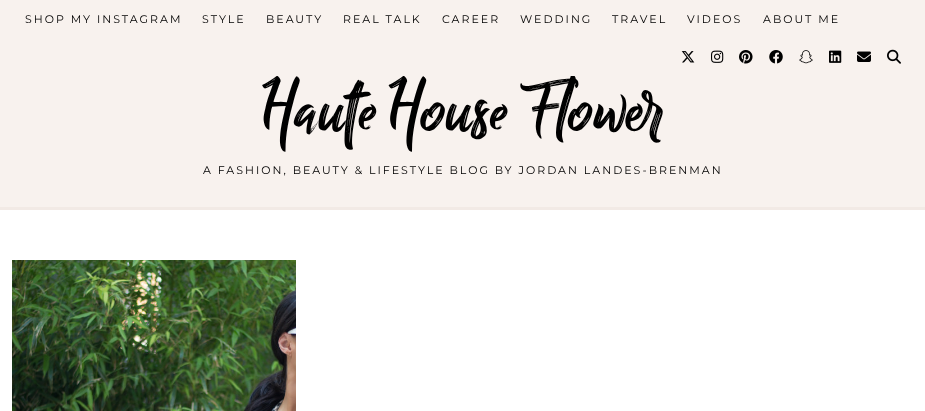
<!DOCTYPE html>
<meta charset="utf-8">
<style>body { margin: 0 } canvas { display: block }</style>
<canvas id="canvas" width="925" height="411"></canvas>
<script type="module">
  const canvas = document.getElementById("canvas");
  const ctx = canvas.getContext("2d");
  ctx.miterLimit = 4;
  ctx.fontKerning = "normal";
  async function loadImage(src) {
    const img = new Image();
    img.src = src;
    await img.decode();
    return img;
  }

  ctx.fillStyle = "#ffffff";
  ctx.fillRect(0, 0, 925, 411);
  ctx.fillStyle = "#f8f2ee";
  ctx.fillRect(0, 76, 925, 131);
  ctx.font = "80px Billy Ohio";
  ctx.fillStyle = "#000000";
  ctx.fillText("Haute House Flower", 262, 130);
  ctx.fillStyle = "#f8f2ee";
  ctx.fillRect(0, 0, 925, 76);
  ctx.letterSpacing = "2px";
  ctx.font = "100 11px Montserrat";
  ctx.fillStyle = "#000000";
  ctx.fillText("SHOP MY INSTAGRAM", 25, 23);
  ctx.fillText("STYLE", 202, 23);
  ctx.fillText("BEAUTY", 266, 23);
  ctx.fillText("REAL TALK", 343, 23);
  ctx.fillText("CAREER", 442, 23);
  ctx.fillText("WEDDING", 520, 23);
  ctx.fillText("TRAVEL", 612, 23);
  ctx.fillText("VIDEOS", 687, 23);
  ctx.fillText("ABOUT ME", 763, 23);
  ctx.drawImage(await loadImage("img1.png"), 681, 51, 14, 12);
  ctx.drawImage(await loadImage("img2.png"), 711, 50, 13, 13);
  ctx.drawImage(await loadImage("img3.png"), 739, 50, 14, 14);
  ctx.drawImage(await loadImage("img4.png"), 769, 50, 14, 14);
  ctx.drawImage(await loadImage("img5.png"), 799, 50, 14, 14);
  ctx.drawImage(await loadImage("img6.png"), 829, 50, 13, 13);
  ctx.drawImage(await loadImage("img7.png"), 857, 51, 14, 11);
  ctx.drawImage(await loadImage("img8.png"), 887, 49, 14, 15);
  ctx.fillStyle = "#f2eae5";
  ctx.fillRect(0, 207, 925, 3);
  ctx.fillStyle = "#000000";
  ctx.fillText("A FASHION, BEAUTY & LIFESTYLE BLOG BY JORDAN LANDES-BRENMAN", 203, 174);
  ctx.drawImage(await loadImage("img9.png"), 12, 260, 284, 151);
</script>
